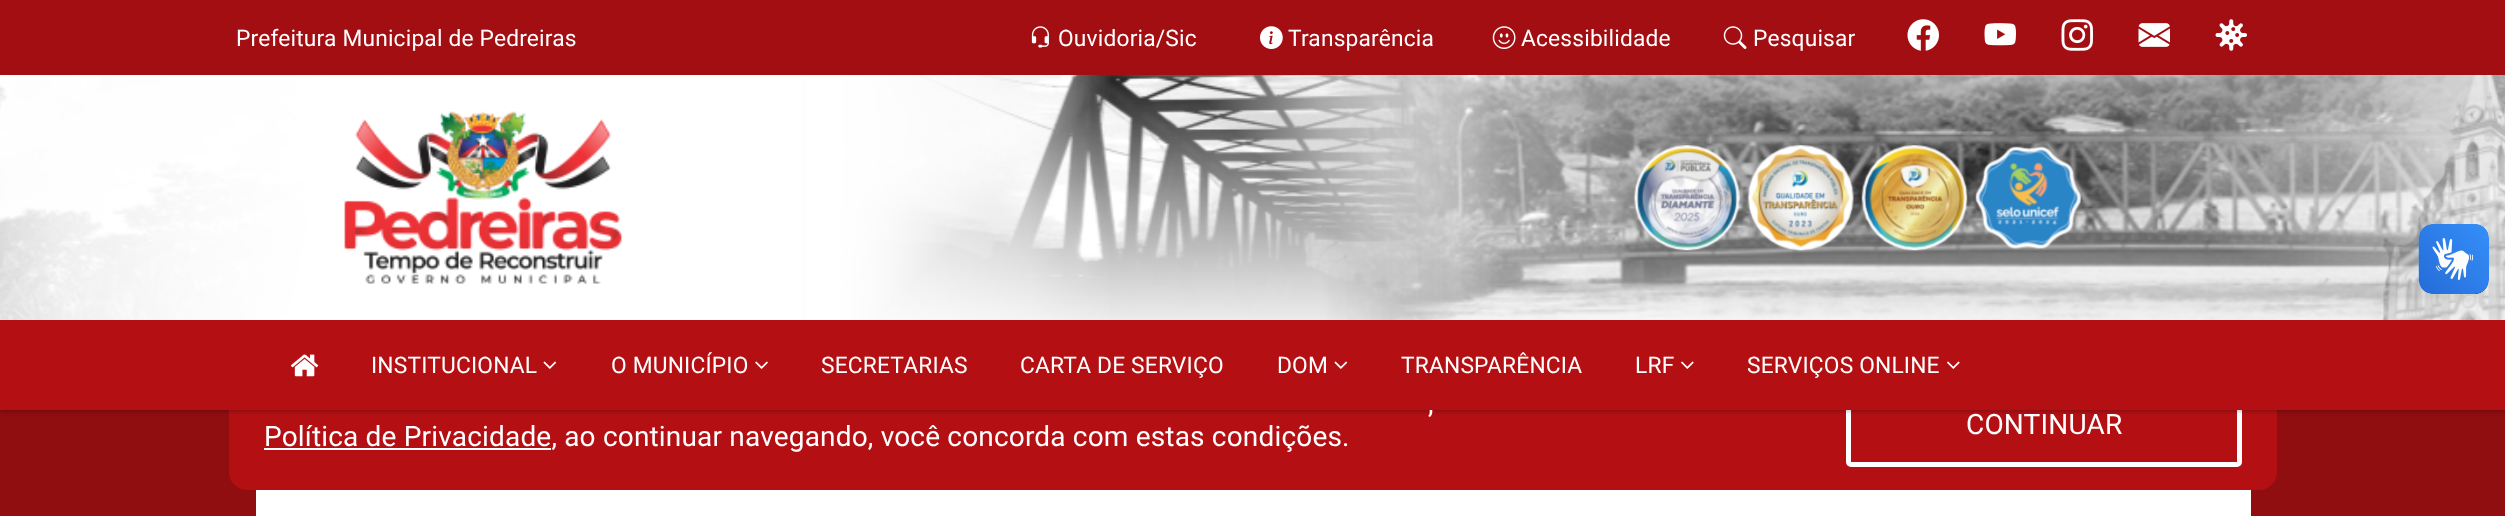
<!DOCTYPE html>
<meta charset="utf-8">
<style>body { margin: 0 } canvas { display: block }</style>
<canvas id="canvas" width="2505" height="516"></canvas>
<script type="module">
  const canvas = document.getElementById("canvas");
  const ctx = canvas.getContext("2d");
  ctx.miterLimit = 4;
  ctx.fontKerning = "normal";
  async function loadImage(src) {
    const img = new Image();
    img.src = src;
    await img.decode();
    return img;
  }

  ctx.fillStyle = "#900d10";
  ctx.fillRect(0, 0, 2505, 516);
  ctx.fillStyle = "#b41014";
  ctx.beginPath();
  ctx.roundRect(229, 361, 2048, 129, 18);
  ctx.fill();
  ctx.beginPath();
  ctx.roundRect(1848.5, 385.5, 391, 79, 2.5);
  ctx.strokeStyle = "#ffffff";
  ctx.lineWidth = 5;
  ctx.stroke();
  ctx.fillStyle = "rgba(0, 0, 0, 0.3)";
  ctx.filter = "blur(2px)";
  ctx.beginPath();
  ctx.rect(0, 2, 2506, 409);
  ctx.fill();
  ctx.filter = "none";
  ctx.drawImage(await loadImage("img1.png"), 0, 75, 2505, 245);
  ctx.fillStyle = "#a20e12";
  ctx.fillRect(0, 0, 2505, 75);
  ctx.letterSpacing = "0.18px";
  ctx.font = "22.75px Roboto";
  ctx.fillStyle = "#ffffff";
  ctx.fillText("Prefeitura Municipal de Pedreiras", 236, 46);
  ctx.drawImage(await loadImage("img2.png"), 1031, 26, 18, 22);
  ctx.fillText("Ouvidoria/Sic", 1058, 46);
  ctx.drawImage(await loadImage("img3.png"), 1260, 26, 23, 23);
  ctx.fillText("Transparência", 1288, 46);
  ctx.drawImage(await loadImage("img4.png"), 1492, 26, 24, 23);
  ctx.fillText("Acessibilidade", 1521, 46);
  ctx.drawImage(await loadImage("img5.png"), 1723, 26, 24, 23);
  ctx.fillText("Pesquisar", 1753, 46);
  ctx.drawImage(await loadImage("img6.png"), 1907, 19, 32, 32);
  ctx.drawImage(await loadImage("img7.png"), 1984, 23, 32, 23);
  ctx.drawImage(await loadImage("img8.png"), 2061, 19, 32, 32);
  ctx.drawImage(await loadImage("img9.png"), 2138, 23, 32, 24);
  ctx.drawImage(await loadImage("img10.png"), 2215, 19, 32, 32);
  ctx.drawImage(await loadImage("img11.png"), 344, 111, 278, 173);
  ctx.drawImage(await loadImage("img12.png"), 1633, 145, 107, 106);
  ctx.drawImage(await loadImage("img13.png"), 1747, 145, 107, 106);
  ctx.drawImage(await loadImage("img14.png"), 1861, 145, 107, 106);
  ctx.drawImage(await loadImage("img15.png"), 1975, 146, 106, 104);
  ctx.fillStyle = "#b41014";
  ctx.fillRect(0, 320, 2505, 90);
  ctx.drawImage(await loadImage("img16.png"), 291, 354, 28, 23);
  ctx.fillStyle = "#ffffff";
  ctx.fillText("INSTITUCIONAL", 371, 373);
  ctx.drawImage(await loadImage("img17.png"), 543, 361, 14, 8);
  ctx.fillText("O MUNICÍPIO", 611, 373);
  ctx.drawImage(await loadImage("img18.png"), 755, 361, 13, 8);
  ctx.fillText("SECRETARIAS", 821, 373);
  ctx.fillText("CARTA DE SERVIÇO", 1020, 373);
  ctx.fillText("DOM", 1277, 373);
  ctx.drawImage(await loadImage("img17.png"), 1334, 361, 14, 8);
  ctx.fillText("TRANSPARÊNCIA", 1401, 373);
  ctx.fillText("LRF", 1635, 373);
  ctx.drawImage(await loadImage("img19.png"), 1681, 361, 13, 8);
  ctx.fillText("SERVIÇOS ONLINE", 1747, 373);
  ctx.drawImage(await loadImage("img19.png"), 1947, 361, 13, 8);
  ctx.drawImage(await loadImage("img20.png"), 2418, 224, 71, 70);
  ctx.drawImage(await loadImage("img21.png"), 2419, 224, 70, 70);
  ctx.font = "28px Roboto";
  ctx.fillText(",", 1428, 413);
  ctx.fillRect(264, 448, 287, 2);
  ctx.fillText("Política de Privacidade, ao continuar navegando, você concorda com estas condições.", 264, 446);
  ctx.fillText("CONTINUAR", 1966, 434);
  ctx.fillRect(256, 490, 1995, 26);
</script>
